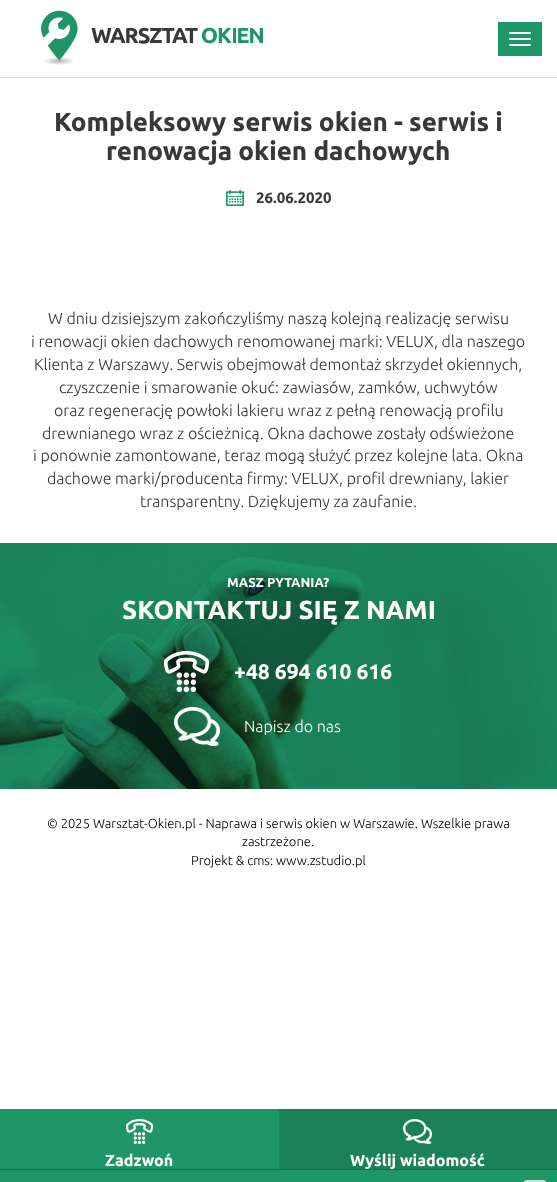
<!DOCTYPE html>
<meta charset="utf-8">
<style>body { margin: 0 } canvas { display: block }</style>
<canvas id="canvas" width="557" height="1182"></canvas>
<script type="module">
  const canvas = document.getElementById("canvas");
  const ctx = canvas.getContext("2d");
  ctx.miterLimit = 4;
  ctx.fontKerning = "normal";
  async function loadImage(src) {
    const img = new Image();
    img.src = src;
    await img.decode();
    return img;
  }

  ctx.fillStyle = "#ffffff";
  ctx.fillRect(0, 0, 557, 1182);
  ctx.drawImage(await loadImage("img1.png"), 41, 10, 222, 55);
  ctx.fillStyle = "#1e9668";
  ctx.fillRect(498, 22, 44, 34);
  ctx.fillStyle = "#ffffff";
  ctx.beginPath();
  ctx.roundRect(509, 32, 22, 2, 1);
  ctx.fill();
  ctx.beginPath();
  ctx.roundRect(509, 38, 22, 2, 1);
  ctx.fill();
  ctx.beginPath();
  ctx.roundRect(509, 44, 22, 2, 1);
  ctx.fill();
  ctx.fillStyle = "#e1e1e1";
  ctx.fillRect(0, 77, 557, 1);
  ctx.font = "bold 26px Ubuntu";
  ctx.fillStyle = "#383838";
  ctx.fillText("Kompleksowy serwis okien - serwis i", 54, 131);
  ctx.fillText("renowacja okien dachowych", 106, 160);
  ctx.drawImage(await loadImage("img2.png"), 226, 190, 18, 16);
  ctx.font = "bold 15px Ubuntu";
  ctx.fillText("26.06.2020", 256, 203);
  ctx.font = "300 16px Ubuntu";
  ctx.fillText("W dniu dzisiejszym zakończyliśmy naszą kolejną realizację serwisu", 48, 324);
  ctx.fillText("i renowacji okien dachowych renomowanej marki: VELUX, dla naszego", 31, 347);
  ctx.fillText("Klienta z Warszawy. Serwis obejmował demontaż skrzydeł okiennych,", 34, 370);
  ctx.fillText("czyszczenie i smarowanie okuć: zawiasów, zamków, uchwytów", 59, 393);
  ctx.fillText("oraz regenerację powłoki lakieru wraz z pełną renowacją profilu", 54, 416);
  ctx.fillText("drewnianego wraz z ościeżnicą. Okna dachowe zostały odświeżone", 42, 439);
  ctx.fillText("i ponownie zamontowane, teraz mogą służyć przez kolejne lata. Okna", 33, 461);
  ctx.fillText("dachowe marki/producenta firmy: VELUX, profil drewniany, lakier", 47, 484);
  ctx.fillText("transparentny. Dziękujemy za zaufanie.", 140, 507);
  ctx.drawImage(await loadImage("img3.png"), 0, 543, 557, 246);
  ctx.font = "bold 13px Ubuntu";
  ctx.fillStyle = "#ffffff";
  ctx.fillText("MASZ PYTANIA?", 227, 587);
  ctx.font = "bold 26px Ubuntu";
  ctx.fillText("SKONTAKTUJ SIĘ Z NAMI", 122, 619);
  ctx.drawImage(await loadImage("img4.png"), 164, 651, 45, 41);
  ctx.font = "bold 21px Ubuntu";
  ctx.fillText("+48 694 610 616", 234, 679);
  ctx.drawImage(await loadImage("img5.png"), 174, 707, 46, 39);
  ctx.font = "300 16px Ubuntu";
  ctx.fillText("Napisz do nas", 244, 732);
  ctx.font = "300 13px Ubuntu";
  ctx.fillStyle = "#000000";
  ctx.fillText("© 2025 Warsztat-Okien.pl - Naprawa i serwis okien w Warszawie. Wszelkie prawa", 47, 828);
  ctx.fillText("zastrzeżone.", 242, 846);
  ctx.fillText("Projekt & cms: www.zstudio.pl", 191, 865);
  ctx.fillStyle = "#1e9668";
  ctx.fillRect(0, 1109, 279, 60);
  ctx.drawImage(await loadImage("img6.png"), 126, 1119, 27, 25);
  ctx.font = "bold 16px Ubuntu";
  ctx.fillStyle = "#ffffff";
  ctx.fillText("Zadzwoń", 105, 1166);
  ctx.fillStyle = "#1a8159";
  ctx.fillRect(279, 1109, 278, 60);
  ctx.drawImage(await loadImage("img7.png"), 403, 1119, 29, 25);
  ctx.fillStyle = "#ffffff";
  ctx.fillText("Wyślij wiadomość", 350, 1166);
  ctx.fillStyle = "#1e9668";
  ctx.fillRect(0, 1170, 557, 12);
  ctx.fillStyle = "#166b4b";
  ctx.fillRect(0, 1169, 557, 1);
  ctx.drawImage(await loadImage("img8.png"), 523, 1180, 24, 2);
</script>
